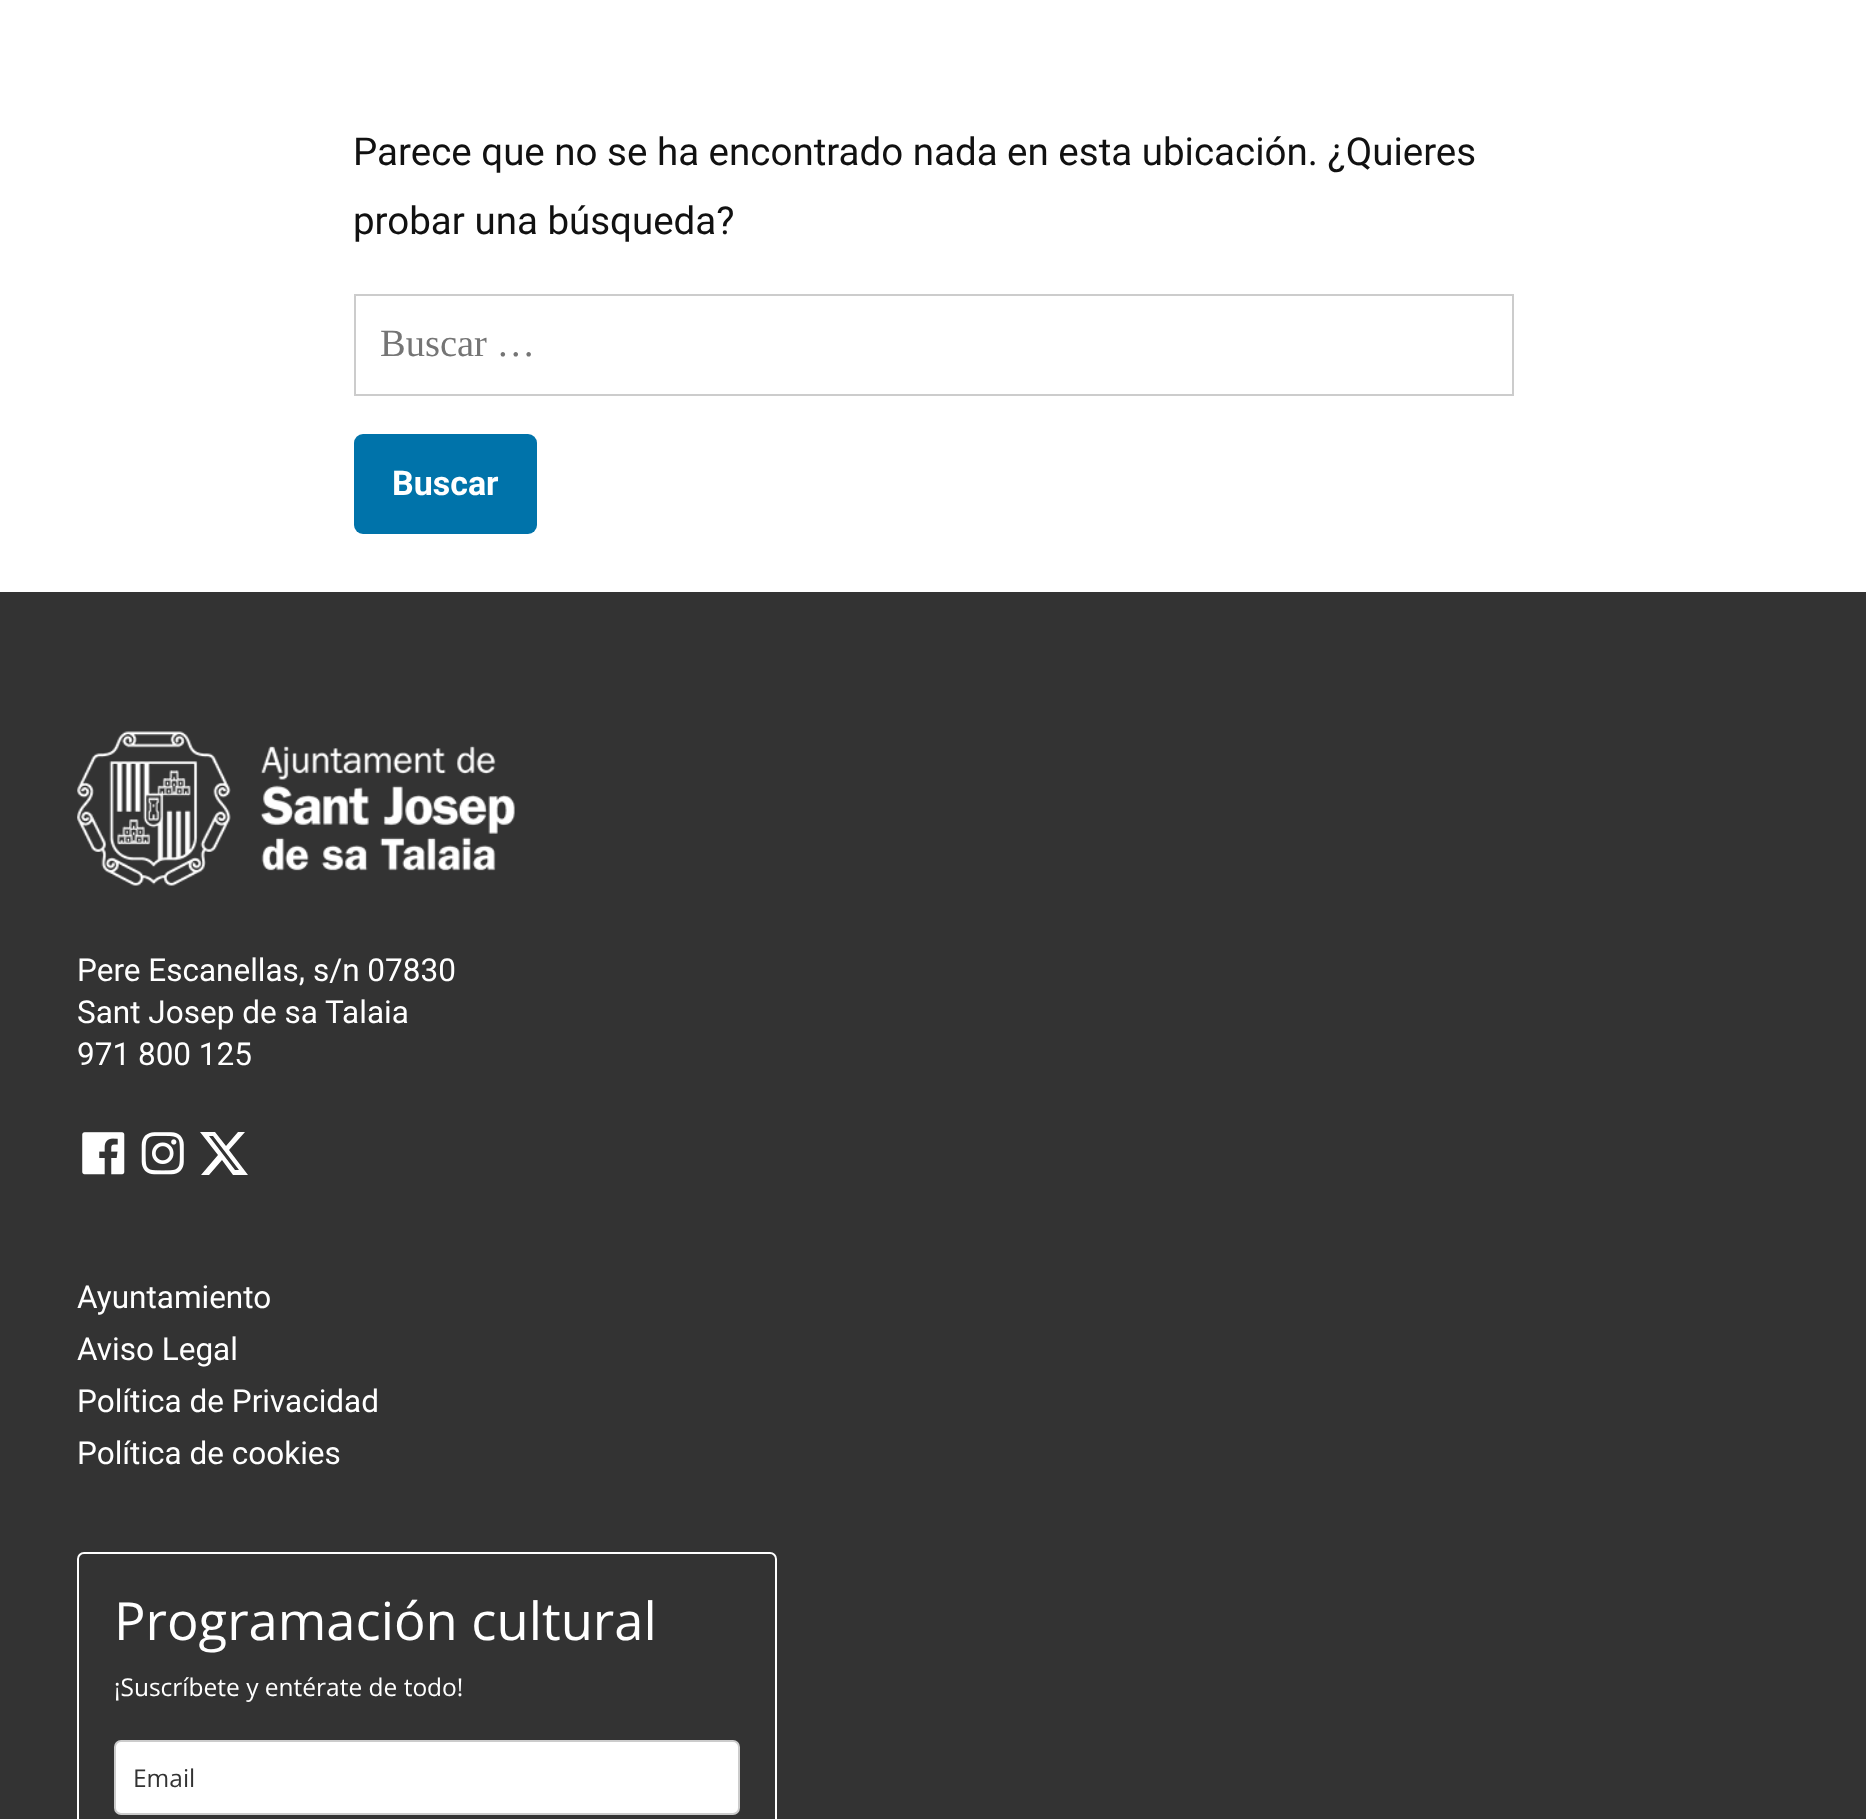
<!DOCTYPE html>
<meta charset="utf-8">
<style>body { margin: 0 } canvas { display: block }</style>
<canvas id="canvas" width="1866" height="1819"></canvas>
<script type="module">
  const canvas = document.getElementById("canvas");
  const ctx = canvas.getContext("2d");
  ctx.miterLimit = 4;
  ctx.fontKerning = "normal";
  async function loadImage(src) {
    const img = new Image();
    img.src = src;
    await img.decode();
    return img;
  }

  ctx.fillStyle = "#ffffff";
  ctx.fillRect(0, 0, 1866, 1819);
  ctx.font = "38.5px Roboto";
  ctx.fillStyle = "#111111";
  ctx.fillText("Parece que no se ha encontrado nada en esta ubicación. ¿Quieres", 353, 165);
  ctx.fillText("probar una búsqueda?", 353, 234);
  ctx.strokeStyle = "#cccccc";
  ctx.lineWidth = 2;
  ctx.strokeRect(355, 295, 1158, 100);
  ctx.font = "38.5px Liberation Serif";
  ctx.fillStyle = "#757575";
  ctx.fillText("Buscar …", 380, 356);
  ctx.fillStyle = "#0073aa";
  ctx.beginPath();
  ctx.roundRect(354, 434, 183, 100, 9);
  ctx.fill();
  ctx.font = "bold 34px Roboto";
  ctx.fillStyle = "#ffffff";
  ctx.fillText("Buscar", 392, 495);
  ctx.fillStyle = "#333333";
  ctx.fillRect(0, 592, 1866, 1227);
  ctx.drawImage(await loadImage("img1.png"), 77, 731, 438, 155);
  ctx.font = "31.5px Roboto";
  ctx.fillStyle = "#ffffff";
  ctx.fillText("Pere Escanellas, s/n 07830", 77, 981);
  ctx.fillText("Sant Josep de sa Talaia", 77, 1023);
  ctx.fillText("971 800 125", 77, 1065);
  ctx.drawImage(await loadImage("img2.png"), 82, 1132, 43, 43);
  ctx.drawImage(await loadImage("img3.png"), 141, 1132, 43, 43);
  ctx.beginPath();
  ctx.moveTo(238, 1132);
  ctx.lineTo(245, 1132);
  ctx.lineTo(229, 1150);
  ctx.lineTo(248, 1175);
  ctx.lineTo(233, 1175);
  ctx.lineTo(222, 1160);
  ctx.lineTo(209, 1175);
  ctx.lineTo(201, 1175);
  ctx.lineTo(218, 1155);
  ctx.lineTo(200, 1132);
  ctx.lineTo(215, 1132);
  ctx.lineTo(226, 1146);
  ctx.closePath();
  ctx.moveTo(235, 1170);
  ctx.lineTo(239, 1170);
  ctx.lineTo(213, 1136);
  ctx.lineTo(209, 1136);
  ctx.closePath();
  ctx.fill();
  ctx.fillText("Ayuntamiento", 77, 1308);
  ctx.fillText("Aviso Legal", 77, 1360);
  ctx.fillText("Política de Privacidad", 77, 1412);
  ctx.fillText("Política de cookies", 77, 1464);
  ctx.beginPath();
  ctx.roundRect(78, 1553, 698, 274, 6);
  ctx.strokeStyle = "#ffffff";
  ctx.stroke();
  ctx.font = "52.5px Open Sans";
  ctx.fillText("Programación cultural", 114, 1640);
  ctx.font = "24.5px Open Sans";
  ctx.fillText("¡Suscríbete y entérate de todo!", 114, 1696);
  ctx.beginPath();
  ctx.roundRect(115, 1741, 624, 73, 6);
  ctx.fill();
  ctx.strokeStyle = "#cccccc";
  ctx.stroke();
  ctx.fillStyle = "#333333";
  ctx.fillText("Email", 133, 1787);
</script>
